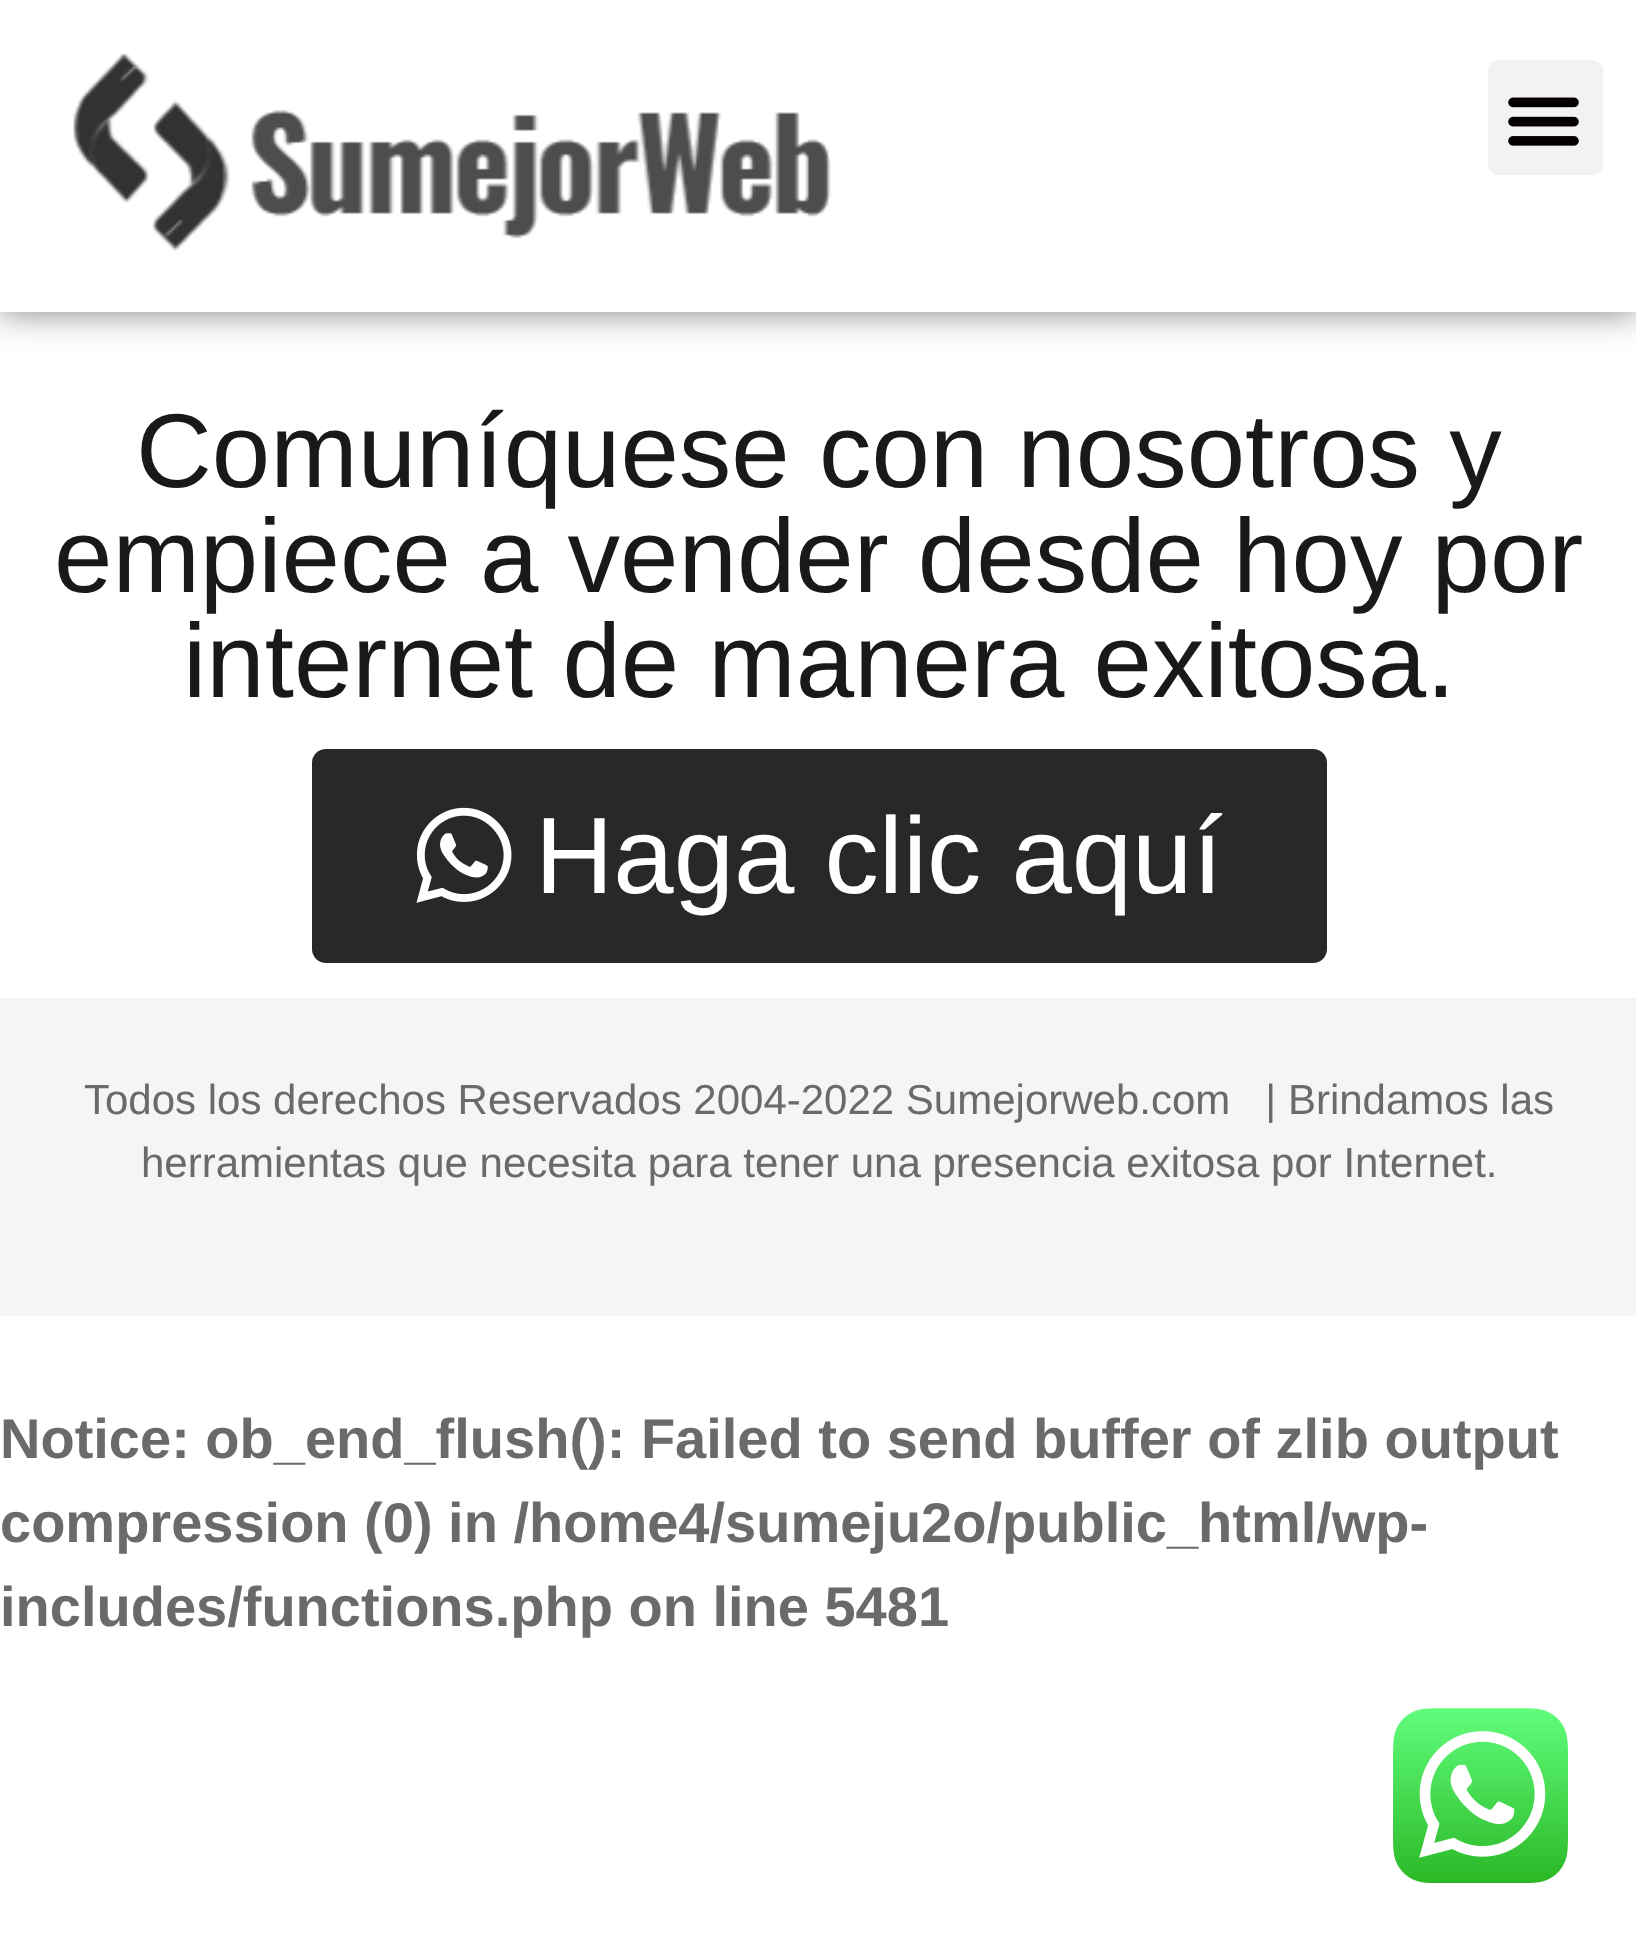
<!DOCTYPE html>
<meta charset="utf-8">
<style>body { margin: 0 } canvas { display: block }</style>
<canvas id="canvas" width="1636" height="1950"></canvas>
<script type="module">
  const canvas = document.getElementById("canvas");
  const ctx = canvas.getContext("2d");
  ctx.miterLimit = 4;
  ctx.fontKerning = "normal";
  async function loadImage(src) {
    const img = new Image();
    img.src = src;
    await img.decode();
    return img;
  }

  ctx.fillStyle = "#ffffff";
  ctx.fillRect(0, 0, 1636, 1950);
  ctx.save();
  ctx.beginPath();
  ctx.moveTo(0, 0);
  ctx.lineTo(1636, 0);
  ctx.lineTo(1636, 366);
  ctx.lineTo(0, 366);
  ctx.closePath();
  ctx.moveTo(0, 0);
  ctx.lineTo(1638, 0);
  ctx.lineTo(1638, 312);
  ctx.lineTo(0, 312);
  ctx.closePath();
  ctx.clip("evenodd");
  ctx.fillStyle = "rgba(0, 0, 0, 0.5)";
  ctx.filter = "blur(17.5px)";
  ctx.beginPath();
  ctx.rect(0, 0, 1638, 312);
  ctx.fill();
  ctx.filter = "none";
  ctx.restore();
  ctx.fillStyle = "rgba(255, 255, 255, 0.85)";
  ctx.fillRect(0, 311, 1636, 1);
  ctx.drawImage(await loadImage("img1.png"), 73, 53, 758, 198);
  ctx.fillStyle = "#f2f2f2";
  ctx.beginPath();
  ctx.roundRect(1488, 60, 115, 115, 11);
  ctx.fill();
  ctx.drawImage(await loadImage("img2.png"), 1508, 97, 71, 49);
  ctx.font = "105px Liberation Sans";
  ctx.fillStyle = "#19191a";
  ctx.fillText("Comuníquese con nosotros y", 136, 487);
  ctx.fillText("empiece a vender desde hoy por", 54, 592);
  ctx.fillText("internet de manera exitosa.", 183, 697);
  ctx.fillStyle = "#282828";
  ctx.beginPath();
  ctx.roundRect(312, 749, 1015, 214, 14);
  ctx.fill();
  ctx.drawImage(await loadImage("img3.png"), 416, 807, 96, 96);
  ctx.font = "108.5px Liberation Sans";
  ctx.fillStyle = "#ffffff";
  ctx.fillText("Haga clic aquí", 535, 893);
  ctx.fillStyle = "#f5f5f5";
  ctx.fillRect(0, 998, 1636, 318);
  ctx.font = "42px Liberation Sans";
  ctx.fillStyle = "#6a6a6a";
  ctx.fillText("Todos los derechos Reservados 2004-2022 Sumejorweb.com   | Brindamos las", 84, 1114);
  ctx.fillText("herramientas que necesita para tener una presencia exitosa por Internet.", 141, 1177);
  ctx.font = "bold 56px Liberation Sans";
  ctx.fillText("Notice: ob_end_flush(): Failed to send buffer of zlib output", 0, 1458);
  ctx.fillText("compression (0) in /home4/sumeju2o/public_html/wp-", 0, 1542);
  ctx.fillText("includes/functions.php on line 5481", 0, 1626);
  ctx.drawImage(await loadImage("img4.png"), 1393, 1708, 175, 175);
</script>
